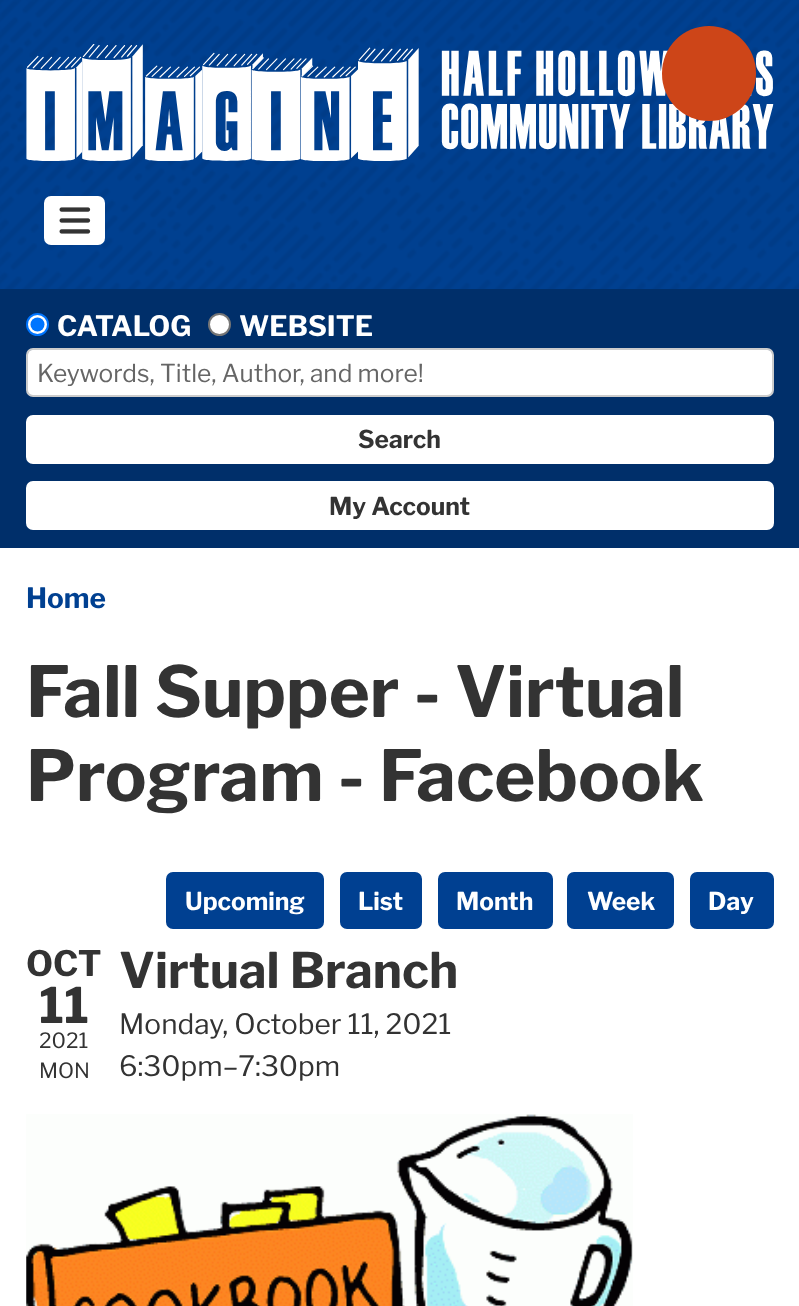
<!DOCTYPE html>
<meta charset="utf-8">
<style>body { margin: 0 } canvas { display: block }</style>
<canvas id="canvas" width="799" height="1306"></canvas>
<script type="module">
  const canvas = document.getElementById("canvas");
  const ctx = canvas.getContext("2d");
  ctx.miterLimit = 4;
  ctx.fontKerning = "normal";
  async function loadImage(src) {
    const img = new Image();
    img.src = src;
    await img.decode();
    return img;
  }

  ctx.fillStyle = "#ffffff";
  ctx.fillRect(0, 0, 799, 1306);
  ctx.drawImage(await loadImage("img1.png"), 0, 0, 799, 289);
  ctx.drawImage(await loadImage("img2.png"), 26, 44, 748, 117);
  ctx.fillStyle = "#cd4518";
  ctx.beginPath();
  ctx.roundRect(662, 26, 94, 95, 47);
  ctx.fill();
  ctx.fillStyle = "#ffffff";
  ctx.beginPath();
  ctx.roundRect(44, 196, 61, 49, 7);
  ctx.fill();
  ctx.drawImage(await loadImage("img3.png"), 59, 207, 32, 27);
  ctx.fillStyle = "#002f6a";
  ctx.fillRect(0, 289, 799, 259);
  ctx.fillStyle = "#ffffff";
  ctx.beginPath();
  ctx.arc(37.5, 324.5, 10.5, 0, Math.PI * 2);
  ctx.fill();
  ctx.strokeStyle = "#0075ff";
  ctx.lineWidth = 2;
  ctx.stroke();
  ctx.fillStyle = "#0075ff";
  ctx.beginPath();
  ctx.arc(37.5, 324.5, 7, 0, Math.PI * 2);
  ctx.fill();
  ctx.font = "bold 28px Libre Franklin";
  ctx.fillStyle = "#ffffff";
  ctx.fillText("CATALOG", 57, 336);
  ctx.beginPath();
  ctx.arc(219.5, 324.5, 10.5, 0, Math.PI * 2);
  ctx.fill();
  ctx.strokeStyle = "#767676";
  ctx.stroke();
  ctx.fillText("WEBSITE", 239, 336);
  ctx.beginPath();
  ctx.roundRect(28, 350, 744, 46, 4);
  ctx.fill();
  ctx.beginPath();
  ctx.roundRect(27, 349, 746, 47, 6);
  ctx.strokeStyle = "#cccccc";
  ctx.stroke();
  ctx.font = "24.5px Libre Franklin";
  ctx.fillStyle = "#666666";
  ctx.fillText("Keywords, Title, Author, and more!", 37, 382);
  ctx.fillStyle = "#ffffff";
  ctx.beginPath();
  ctx.roundRect(27, 416, 746, 47, 6);
  ctx.fill();
  ctx.strokeStyle = "#ffffff";
  ctx.stroke();
  ctx.font = "bold 24.5px Libre Franklin";
  ctx.fillStyle = "#333333";
  ctx.fillText("Search", 358, 448);
  ctx.fillStyle = "#ffffff";
  ctx.beginPath();
  ctx.roundRect(27, 482, 746, 47, 6);
  ctx.fill();
  ctx.stroke();
  ctx.fillStyle = "#333333";
  ctx.fillText("My Account", 329, 515);
  ctx.font = "bold 28px Libre Franklin";
  ctx.fillStyle = "#004091";
  ctx.fillText("Home", 26, 608);
  ctx.font = "bold 70px Libre Franklin";
  ctx.fillStyle = "#333333";
  ctx.fillText("Fall Supper - Virtual", 26, 717);
  ctx.fillText("Program - Facebook", 26, 801);
  ctx.fillStyle = "#004091";
  ctx.beginPath();
  ctx.roundRect(167, 873, 156, 55, 6);
  ctx.fill();
  ctx.strokeStyle = "#004091";
  ctx.stroke();
  ctx.font = "bold 24.5px Libre Franklin";
  ctx.fillStyle = "#ffffff";
  ctx.fillText("Upcoming", 185, 910);
  ctx.fillStyle = "#004091";
  ctx.beginPath();
  ctx.roundRect(341, 873, 80, 55, 6);
  ctx.fill();
  ctx.stroke();
  ctx.fillStyle = "#ffffff";
  ctx.fillText("List", 358, 910);
  ctx.fillStyle = "#004091";
  ctx.beginPath();
  ctx.roundRect(439, 873, 113, 55, 6);
  ctx.fill();
  ctx.stroke();
  ctx.fillStyle = "#ffffff";
  ctx.fillText("Month", 456, 910);
  ctx.fillStyle = "#004091";
  ctx.beginPath();
  ctx.roundRect(568, 873, 105, 55, 6);
  ctx.fill();
  ctx.stroke();
  ctx.fillStyle = "#ffffff";
  ctx.fillText("Week", 587, 910);
  ctx.fillStyle = "#004091";
  ctx.beginPath();
  ctx.roundRect(691, 873, 82, 55, 6);
  ctx.fill();
  ctx.stroke();
  ctx.fillStyle = "#ffffff";
  ctx.fillText("Day", 708, 910);
  ctx.font = "bold 35px Libre Franklin";
  ctx.fillStyle = "#333333";
  ctx.fillText("OCT", 26, 976);
  ctx.font = "bold 49px Libre Franklin";
  ctx.fillText("11", 39, 1023);
  ctx.font = "21px Libre Franklin";
  ctx.fillText("2021", 39, 1048);
  ctx.fillText("MON", 39, 1078);
  ctx.font = "bold 49px Libre Franklin";
  ctx.fillText("Virtual Branch", 119, 988);
  ctx.font = "28px Libre Franklin";
  ctx.fillText("Monday, October 11, 2021", 119, 1034);
  ctx.fillText("6:30pm–7:30pm", 119, 1076);
  ctx.drawImage(await loadImage("img4.png"), 26, 1114, 607, 192);
</script>
